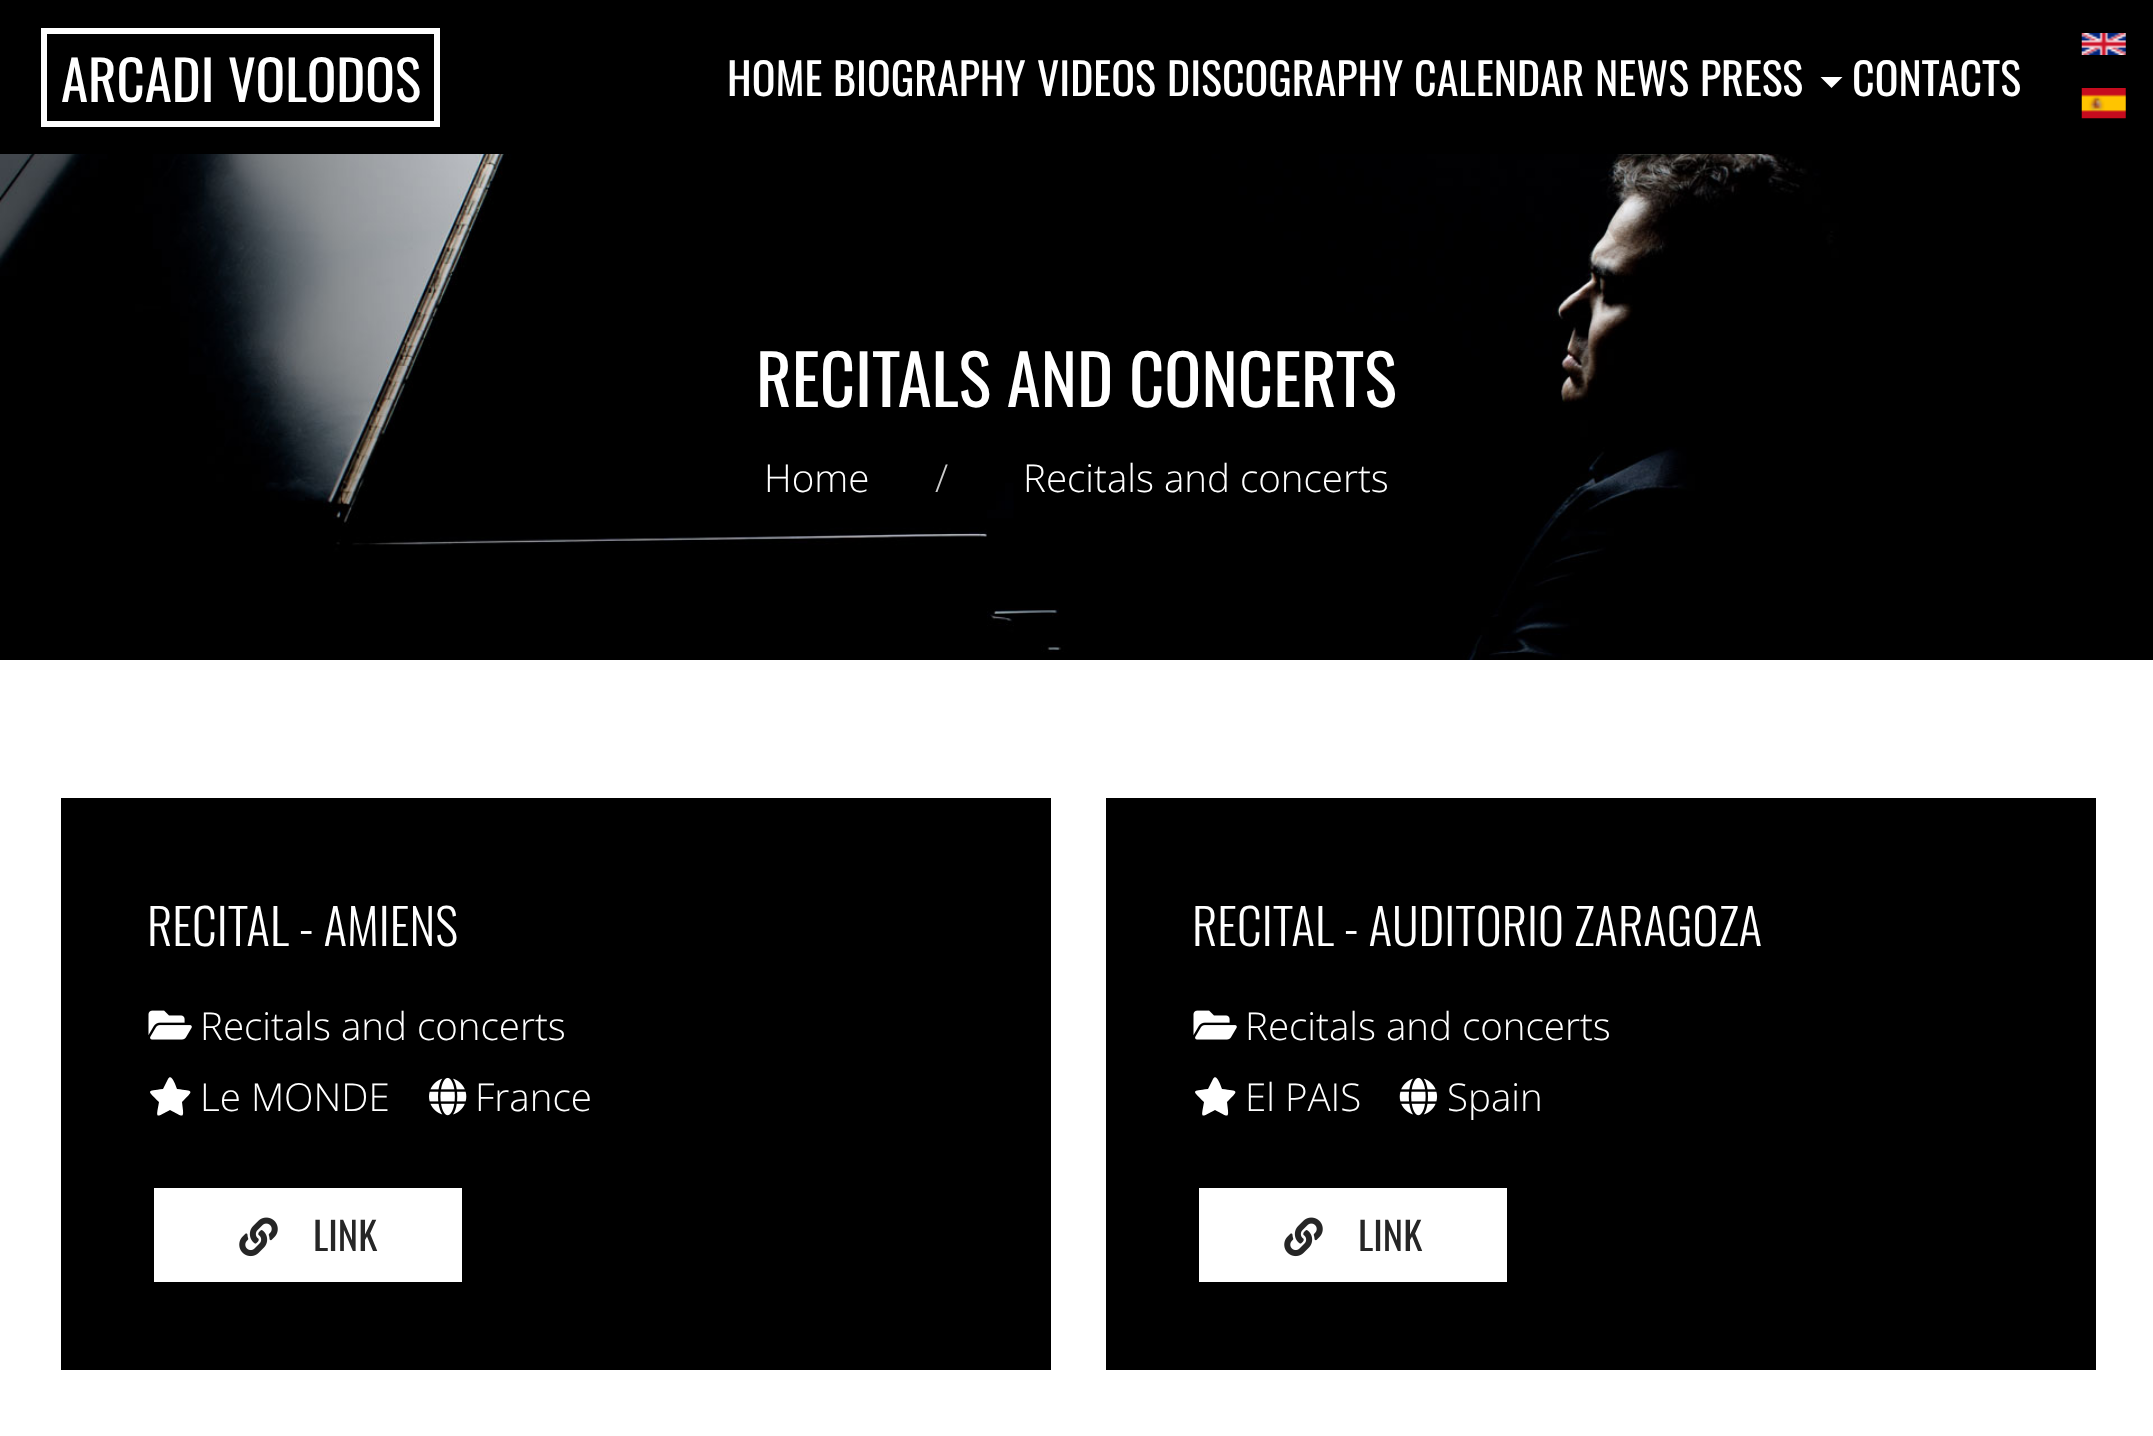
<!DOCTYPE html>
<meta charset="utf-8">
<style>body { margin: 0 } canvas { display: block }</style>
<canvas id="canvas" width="2153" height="1436"></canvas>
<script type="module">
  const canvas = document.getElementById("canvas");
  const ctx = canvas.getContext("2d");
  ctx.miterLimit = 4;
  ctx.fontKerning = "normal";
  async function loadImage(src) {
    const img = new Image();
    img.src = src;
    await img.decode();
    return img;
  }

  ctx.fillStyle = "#ffffff";
  ctx.fillRect(0, 0, 2153, 1436);
  ctx.fillStyle = "#000000";
  ctx.fillRect(0, 0, 2153, 154);
  ctx.strokeStyle = "#ffffff";
  ctx.lineWidth = 6;
  ctx.strokeRect(44, 31, 393, 93);
  ctx.font = "55px Oswald";
  ctx.fillStyle = "#ffffff";
  ctx.fillText("ARCADI", 61, 102);
  ctx.fillText("VOLODOS", 228, 102);
  ctx.font = "44px Oswald";
  ctx.fillText("HOME", 727, 96);
  ctx.fillText("BIOGRAPHY", 833, 96);
  ctx.fillText("VIDEOS", 1037, 96);
  ctx.fillText("DISCOGRAPHY", 1167, 96);
  ctx.fillText("CALENDAR", 1414, 96);
  ctx.fillText("NEWS", 1595, 96);
  ctx.fillText("PRESS", 1700, 96);
  ctx.beginPath();
  ctx.moveTo(1820.5, 77);
  ctx.lineTo(1842.5, 77);
  ctx.lineTo(1831.5, 88);
  ctx.closePath();
  ctx.fill();
  ctx.fillText("CONTACTS", 1852, 96);
  ctx.drawImage(await loadImage("img1.png"), 2081, 33, 45, 22);
  ctx.drawImage(await loadImage("img2.png"), 2081, 88, 45, 31);
  ctx.drawImage(await loadImage("img3.png"), 0, 154, 2153, 506);
  ctx.font = "68.75px Oswald";
  ctx.fillText("RECITALS AND CONCERTS", 756, 407);
  ctx.font = "300 38.5px Open Sans";
  ctx.fillText("Home", 764, 492);
  ctx.fillStyle = "#cccccc";
  ctx.fillText("/", 935, 492);
  ctx.fillStyle = "#ffffff";
  ctx.fillText("Recitals and concerts", 1023, 492);
  ctx.fillStyle = "#000000";
  ctx.fillRect(61, 798, 990, 572);
  ctx.font = "300 49.5px Oswald";
  ctx.fillStyle = "#ffffff";
  ctx.fillText("RECITAL - AMIENS", 147, 946);
  ctx.drawImage(await loadImage("img4.png"), 148, 1010, 44, 30);
  ctx.font = "300 38.5px Open Sans";
  ctx.fillText("Recitals and concerts", 200, 1040);
  ctx.beginPath();
  ctx.moveTo(168, 1079);
  ctx.lineTo(163, 1089);
  ctx.bezierCurveTo(146, 1091, 147, 1090, 159, 1102);
  ctx.bezierCurveTo(156, 1119, 155, 1118, 170, 1110);
  ctx.bezierCurveTo(185, 1118, 184, 1119, 182, 1102);
  ctx.bezierCurveTo(194, 1090, 194, 1091, 177, 1089);
  ctx.bezierCurveTo(175, 1083, 171, 1073, 168, 1079);
  ctx.closePath();
  ctx.fill();
  ctx.fillText("Le MONDE", 200, 1111);
  ctx.drawImage(await loadImage("img5.png"), 429, 1077, 38, 39);
  ctx.fillText("France", 475, 1111);
  ctx.fillRect(154, 1188, 308, 94);
  ctx.drawImage(await loadImage("img6.png"), 239, 1217, 39, 40);
  ctx.font = "38.5px Oswald";
  ctx.fillStyle = "#262626";
  ctx.fillText("LINK", 313, 1251);
  ctx.fillStyle = "#000000";
  ctx.fillRect(1106, 798, 990, 572);
  ctx.font = "300 49.5px Oswald";
  ctx.fillStyle = "#ffffff";
  ctx.fillText("RECITAL - AUDITORIO ZARAGOZA", 1192, 946);
  ctx.drawImage(await loadImage("img4.png"), 1193, 1010, 44, 30);
  ctx.font = "300 38.5px Open Sans";
  ctx.fillText("Recitals and concerts", 1245, 1040);
  ctx.beginPath();
  ctx.moveTo(1213, 1079);
  ctx.lineTo(1208, 1089);
  ctx.bezierCurveTo(1191, 1091, 1192, 1090, 1204, 1102);
  ctx.bezierCurveTo(1201, 1119, 1200, 1118, 1215, 1110);
  ctx.bezierCurveTo(1230, 1118, 1229, 1119, 1227, 1102);
  ctx.bezierCurveTo(1239, 1090, 1239, 1091, 1222, 1089);
  ctx.bezierCurveTo(1220, 1083, 1216, 1073, 1213, 1079);
  ctx.closePath();
  ctx.fill();
  ctx.fillText("El PAIS", 1245, 1111);
  ctx.drawImage(await loadImage("img7.png"), 1399, 1077, 39, 39);
  ctx.fillText("Spain", 1447, 1111);
  ctx.fillRect(1199, 1188, 308, 94);
  ctx.drawImage(await loadImage("img6.png"), 1284, 1217, 39, 40);
  ctx.font = "38.5px Oswald";
  ctx.fillStyle = "#262626";
  ctx.fillText("LINK", 1358, 1251);
</script>
